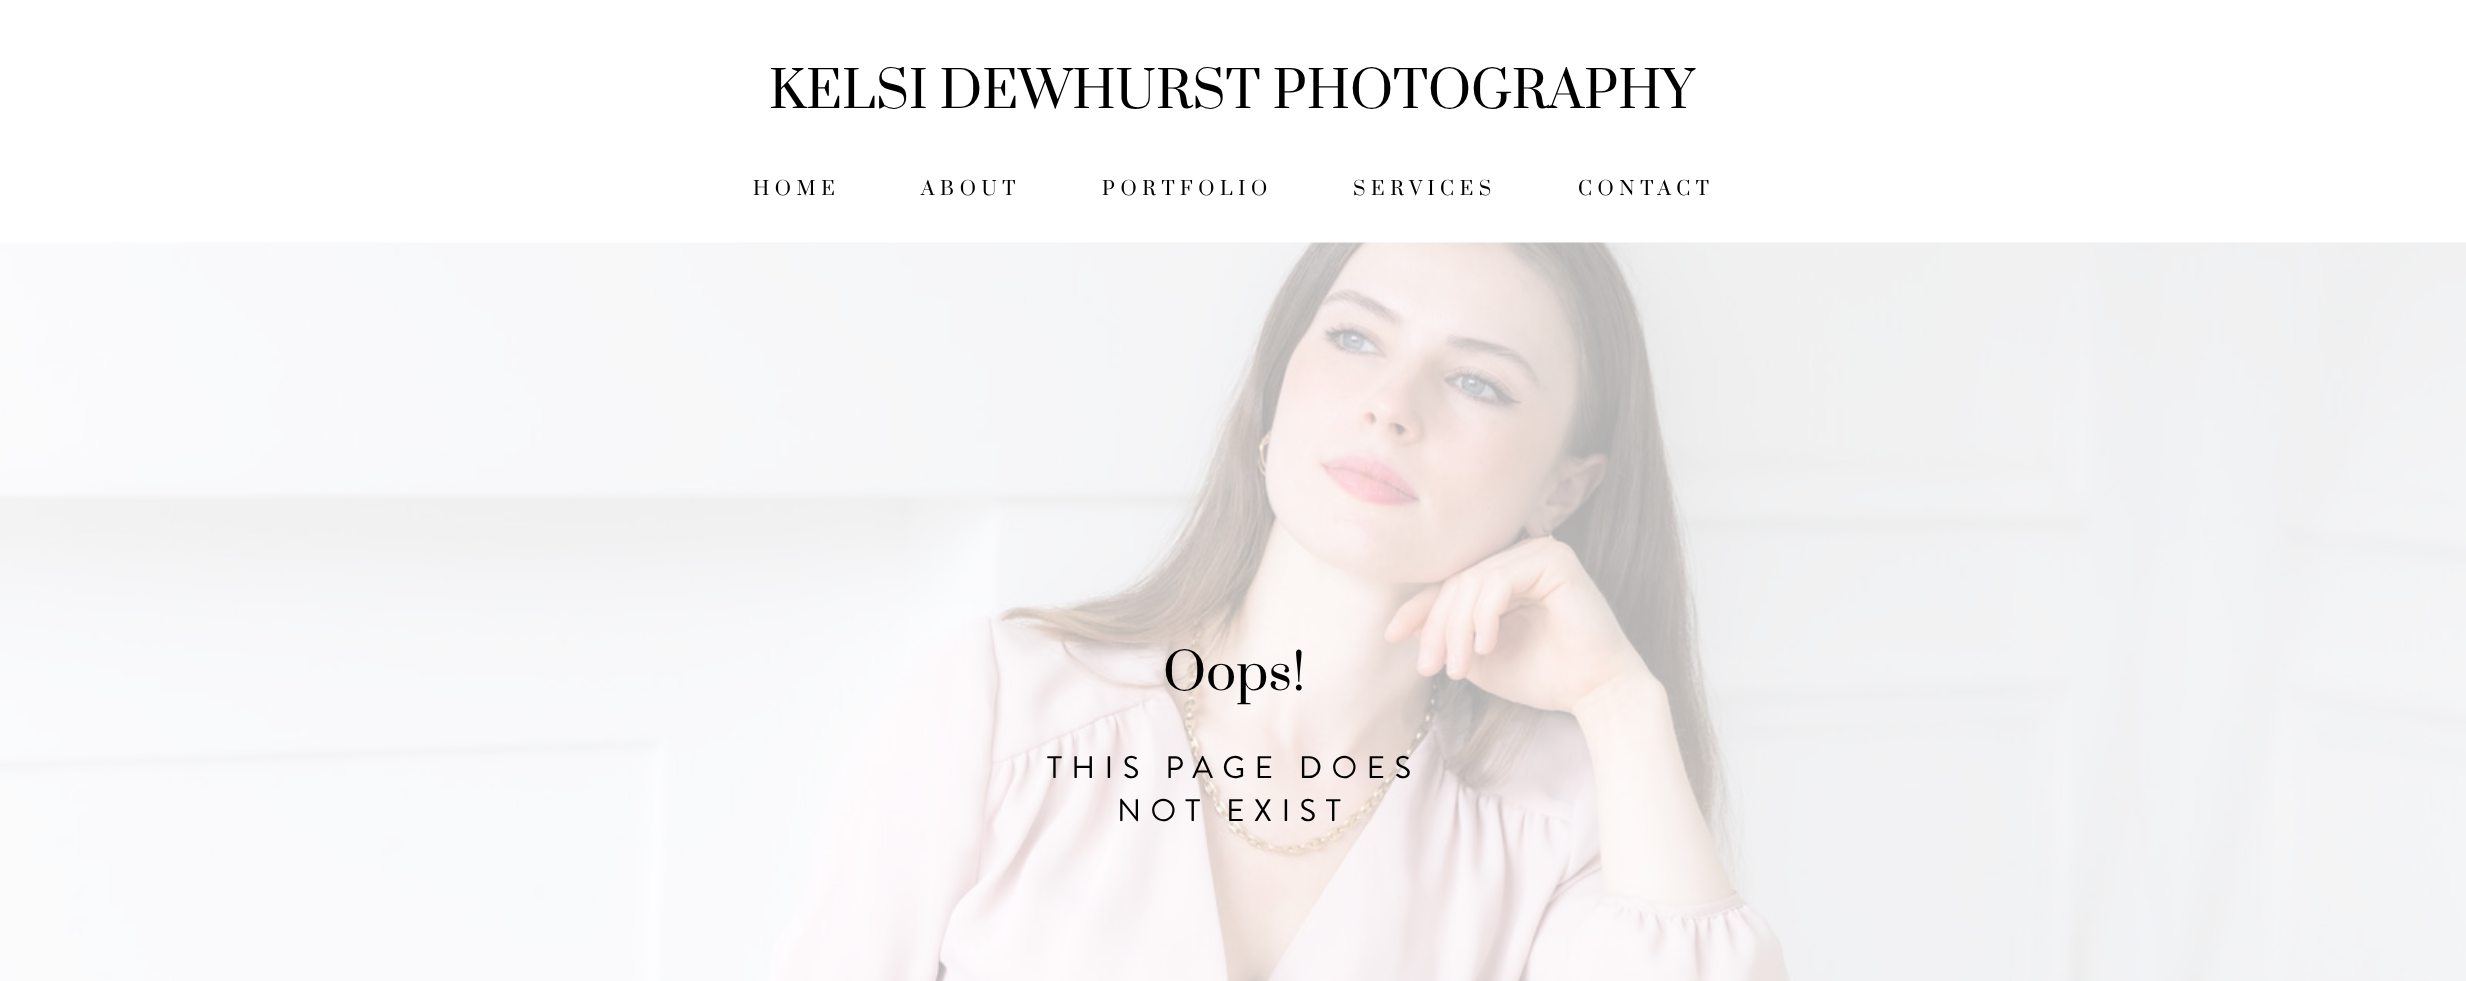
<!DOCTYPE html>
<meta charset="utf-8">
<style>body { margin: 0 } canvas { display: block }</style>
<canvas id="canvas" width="2466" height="981"></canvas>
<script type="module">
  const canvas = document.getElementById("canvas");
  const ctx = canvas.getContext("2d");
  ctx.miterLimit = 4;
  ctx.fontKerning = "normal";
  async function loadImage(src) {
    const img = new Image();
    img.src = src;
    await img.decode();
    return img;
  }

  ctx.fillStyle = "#ffffff";
  ctx.fillRect(0, 0, 2466, 981);
  ctx.font = "50px Prata";
  ctx.fillStyle = "#000000";
  ctx.fillText("KELSI DEWHURST PHOTOGRAPHY", 769, 108);
  ctx.letterSpacing = "5.6px";
  ctx.font = "18.75px Prata";
  ctx.fillText("HOME", 753, 195);
  ctx.fillText("ABOUT", 921, 195);
  ctx.fillText("PORTFOLIO", 1102, 195);
  ctx.fillText("SERVICES", 1353, 195);
  ctx.fillText("CONTACT", 1578, 195);
  ctx.drawImage(await loadImage("img1.png"), 0, 242, 2466, 739);
  ctx.letterSpacing = "0px";
  ctx.font = "50px Prata";
  ctx.fillText("Oops!", 1163, 690);
  ctx.letterSpacing = "9.4px";
  ctx.font = "31.25px Brandon Grotesque";
  ctx.fillText("THIS PAGE DOES", 1047, 778);
  ctx.fillText("NOT EXIST", 1117, 821);
</script>
